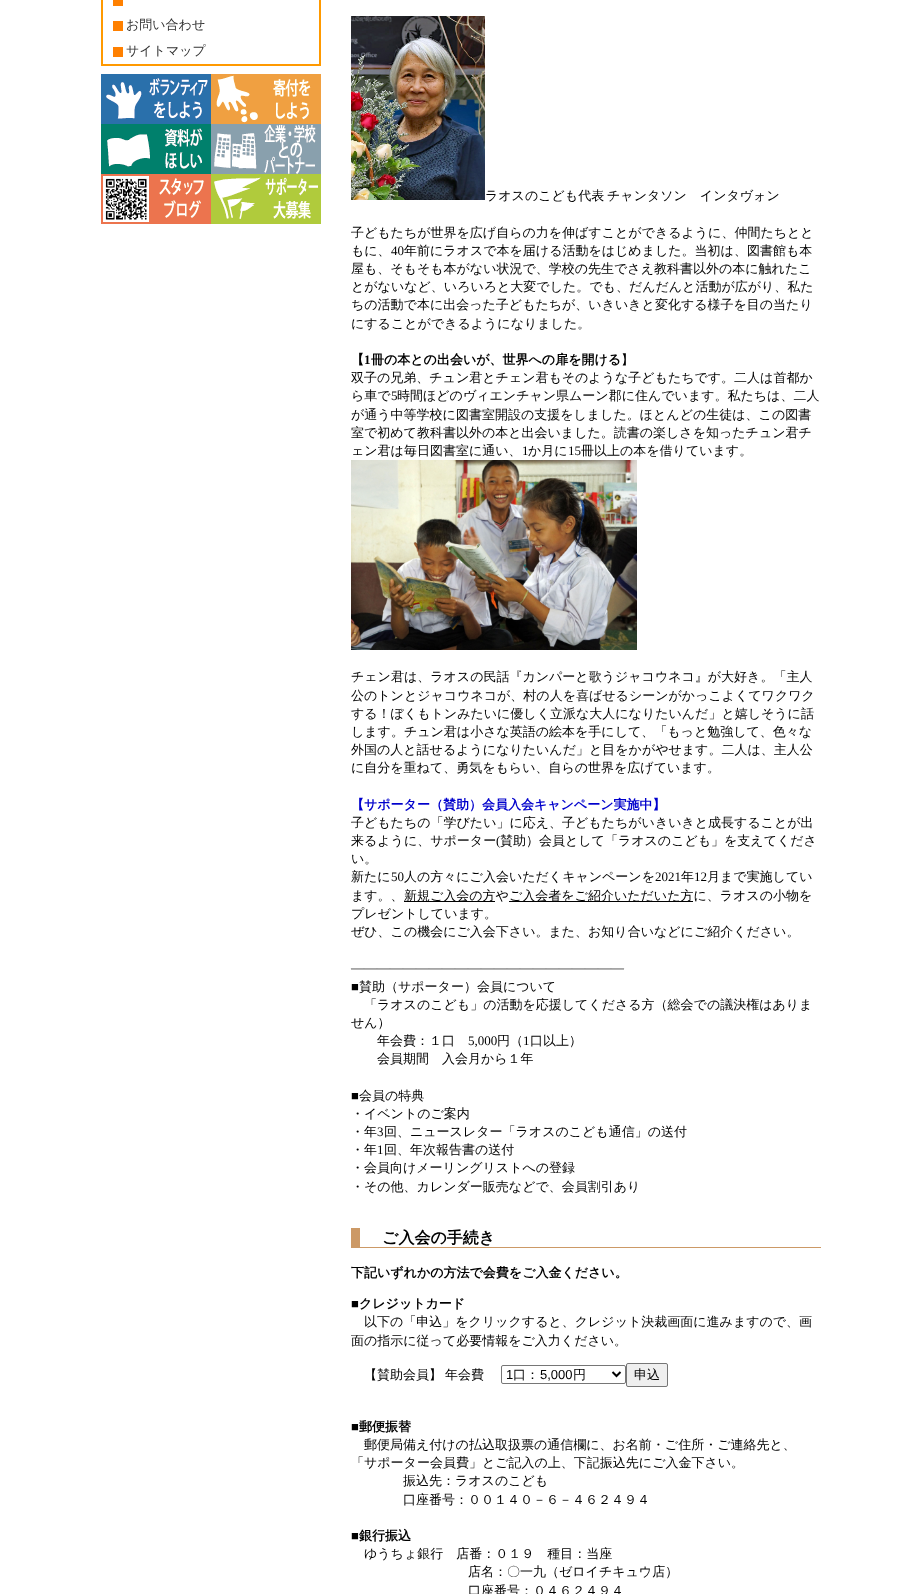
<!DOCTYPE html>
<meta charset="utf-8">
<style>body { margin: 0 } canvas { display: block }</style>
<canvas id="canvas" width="922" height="1594"></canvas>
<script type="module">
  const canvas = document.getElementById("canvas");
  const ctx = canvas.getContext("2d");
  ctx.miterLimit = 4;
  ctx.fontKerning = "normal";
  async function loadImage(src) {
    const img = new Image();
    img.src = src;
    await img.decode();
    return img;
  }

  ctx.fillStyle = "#ffffff";
  ctx.fillRect(0, 0, 922, 1594);
  ctx.strokeStyle = "#ff9900";
  ctx.lineWidth = 2;
  ctx.strokeRect(102, -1, 218, 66);
  ctx.fillStyle = "#ff8000";
  ctx.fillRect(113, 0, 10, 6);
  ctx.fillRect(113, 21, 10, 10);
  ctx.font = "500 13px WenQuanYi Zen Hei";
  ctx.fillStyle = "#333333";
  ctx.fillText("お問い合わせ", 126, 29);
  ctx.fillStyle = "#ff8000";
  ctx.fillRect(113, 47, 10, 10);
  ctx.fillStyle = "#333333";
  ctx.fillText("サイトマップ", 126, 55);
  ctx.drawImage(await loadImage("img1.png"), 101, 74, 110, 50);
  ctx.drawImage(await loadImage("img2.png"), 211, 74, 110, 50);
  ctx.drawImage(await loadImage("img3.png"), 101, 124, 110, 50);
  ctx.drawImage(await loadImage("img4.png"), 211, 124, 110, 50);
  ctx.drawImage(await loadImage("img5.png"), 101, 174, 110, 50);
  ctx.drawImage(await loadImage("img6.png"), 211, 174, 110, 50);
  ctx.drawImage(await loadImage("img7.png"), 351, 16, 134, 184);
  ctx.wordSpacing = "-1px";
  ctx.fillStyle = "#000000";
  ctx.fillText("ラオスのこども代表 チャンタソン　インタヴォン", 485, 200);
  ctx.wordSpacing = "0px";
  ctx.fillText("子どもたちが世界を広げ自らの力を伸ばすことができるように、仲間たちとと", 351, 237);
  ctx.fillText("もに、", 351, 255);
  ctx.font = "13px Liberation Serif";
  ctx.fillText("40", 391, 255);
  ctx.font = "500 13px WenQuanYi Zen Hei";
  ctx.fillText("年前にラオスで本を届ける活動をはじめました。当初は、図書館も本", 404, 255);
  ctx.fillText("屋も、そもそも本がない状況で、学校の先生でさえ教科書以外の本に触れたこ", 351, 273);
  ctx.fillText("とがないなど、いろいろと大変でした。でも、だんだんと活動が広がり、私た", 351, 291);
  ctx.fillText("ちの活動で本に出会った子どもたちが、いきいきと変化する様子を目の当たり", 351, 309);
  ctx.fillText("にすることができるようになりました。", 351, 328);
  ctx.font = "bold 13px WenQuanYi Zen Hei";
  ctx.fillText("【", 351, 364);
  ctx.font = "bold 13px Liberation Serif";
  ctx.fillText("1", 364, 364);
  ctx.font = "bold 13px WenQuanYi Zen Hei";
  ctx.fillText("冊の本との出会いが、世界への扉を開ける", 371, 364);
  ctx.font = "500 13px WenQuanYi Zen Hei";
  ctx.fillText("】", 621, 364);
  ctx.fillText("双子の兄弟、チュン君とチェン君もそのような子どもたちです。二人は首都か", 351, 382);
  ctx.fillText("ら車で", 351, 400);
  ctx.font = "13px Liberation Serif";
  ctx.fillText("5", 391, 400);
  ctx.font = "500 13px WenQuanYi Zen Hei";
  ctx.fillText("時間ほどのヴィエンチャン県ムーン郡に住んでいます。私たちは、二人", 397, 400);
  ctx.fillText("が通う中等学校に図書室開設の支援をしました。ほとんどの生徒は、この図書", 351, 419);
  ctx.fillText("室で初めて教科書以外の本と出会いました。読書の楽しさを知ったチュン君チ", 351, 437);
  ctx.fillText("ェン君は毎日図書室に通い、", 351, 455);
  ctx.font = "13px Liberation Serif";
  ctx.fillText("1", 522, 455);
  ctx.font = "500 13px WenQuanYi Zen Hei";
  ctx.fillText("か月に", 528, 455);
  ctx.font = "13px Liberation Serif";
  ctx.fillText("15", 568, 455);
  ctx.font = "500 13px WenQuanYi Zen Hei";
  ctx.fillText("冊以上の本を借りています。", 581, 455);
  ctx.drawImage(await loadImage("img8.png"), 351, 460, 286, 190);
  ctx.fillText("チェン君は、ラオスの民話『カンパーと歌うジャコウネコ』が大好き。「主人", 351, 681);
  ctx.fillText("公のトンとジャコウネコが、村の人を喜ばせるシーンがかっこよくてワクワク", 351, 700);
  ctx.fillText("する！ぼくもトンみたいに優しく立派な大人になりたいんだ」と嬉しそうに話", 351, 718);
  ctx.fillText("します。チュン君は小さな英語の絵本を手にして、「もっと勉強して、色々な", 351, 736);
  ctx.fillText("外国の人と話せるようになりたいんだ」と目をかがやせます。二人は、主人公", 351, 754);
  ctx.fillText("に自分を重ねて、勇気をもらい、自らの世界を広げています。", 351, 772);
  ctx.font = "bold 13px WenQuanYi Zen Hei";
  ctx.fillStyle = "#0000cc";
  ctx.fillText("【サポーター（賛助）会員入会キャンペーン実施中】", 351, 809);
  ctx.font = "500 13px WenQuanYi Zen Hei";
  ctx.fillStyle = "#000000";
  ctx.fillText("子どもたちの「学びたい」に応え、子どもたちがいきいきと成長することが出", 351, 827);
  ctx.fillText("来るように、サポーター", 351, 845);
  ctx.font = "13px Liberation Serif";
  ctx.fillText("(", 496, 845);
  ctx.font = "500 13px WenQuanYi Zen Hei";
  ctx.fillText("賛助）会員として「ラオスのこども」を支えてくださ", 500, 845);
  ctx.fillText("い。", 351, 863);
  ctx.fillText("新たに", 351, 881);
  ctx.font = "13px Liberation Serif";
  ctx.fillText("50", 391, 881);
  ctx.font = "500 13px WenQuanYi Zen Hei";
  ctx.fillText("人の方々にご入会いただくキャンペーンを", 404, 881);
  ctx.font = "13px Liberation Serif";
  ctx.fillText("2021", 655, 881);
  ctx.font = "500 13px WenQuanYi Zen Hei";
  ctx.fillText("年", 681, 881);
  ctx.font = "13px Liberation Serif";
  ctx.fillText("12", 694, 881);
  ctx.font = "500 13px WenQuanYi Zen Hei";
  ctx.fillText("月まで実施してい", 707, 881);
  ctx.fillText("ます。、", 351, 900);
  ctx.fillRect(404, 901, 91, 1);
  ctx.fillText("新規ご入会の方や", 404, 900);
  ctx.fillRect(509, 901, 184, 1);
  ctx.fillText("ご入会者をご紹介いただいた方に、ラオスの小物を", 509, 900);
  ctx.fillText("プレゼントしています。", 351, 918);
  ctx.fillText("ぜひ、この機会にご入会下さい。また、お知り合いなどにご紹介ください。", 351, 936);
  ctx.font = "13px Liberation Serif";
  ctx.fillText("―――――――――――――――――――――", 351, 972);
  ctx.fillText("■", 351, 991);
  ctx.font = "500 13px WenQuanYi Zen Hei";
  ctx.fillText("賛助（サポーター）会員について", 359, 991);
  ctx.fillText("「ラオスのこども」の活動を応援してくださる方（総会での議決権はありま", 364, 1009);
  ctx.fillText("せん）", 351, 1027);
  ctx.fillText("年会費：１口", 377, 1045);
  ctx.font = "13px Liberation Serif";
  ctx.fillText("5,000", 468, 1045);
  ctx.font = "500 13px WenQuanYi Zen Hei";
  ctx.fillText("円（", 497, 1045);
  ctx.font = "13px Liberation Serif";
  ctx.fillText("1", 523, 1045);
  ctx.font = "500 13px WenQuanYi Zen Hei";
  ctx.fillText("口以上）", 530, 1045);
  ctx.fillText("会員期間　入会月から１年", 377, 1063);
  ctx.font = "13px Liberation Serif";
  ctx.fillText("■", 351, 1100);
  ctx.font = "500 13px WenQuanYi Zen Hei";
  ctx.fillText("会員の特典", 359, 1100);
  ctx.fillText("・イベントのご案内", 351, 1118);
  ctx.fillText("・年", 351, 1136);
  ctx.font = "13px Liberation Serif";
  ctx.fillText("3", 377, 1136);
  ctx.font = "500 13px WenQuanYi Zen Hei";
  ctx.fillText("回、ニュースレター「ラオスのこども通信」の送付", 384, 1136);
  ctx.fillText("・年", 351, 1154);
  ctx.font = "13px Liberation Serif";
  ctx.fillText("1", 377, 1154);
  ctx.font = "500 13px WenQuanYi Zen Hei";
  ctx.fillText("回、年次報告書の送付", 384, 1154);
  ctx.fillText("・会員向けメーリングリストへの登録", 351, 1172);
  ctx.fillText("・その他、カレンダー販売などで、会員割引あり", 351, 1191);
  ctx.fillStyle = "#cc9966";
  ctx.fillRect(360, 1247, 461, 1);
  ctx.fillRect(351, 1228, 9, 20);
  ctx.font = "bold 16px WenQuanYi Zen Hei";
  ctx.fillStyle = "#000000";
  ctx.fillText("ご入会の手続き", 382, 1243);
  ctx.font = "bold 13px WenQuanYi Zen Hei";
  ctx.fillText("下記いずれかの方法で会費をご入金ください。", 351, 1277);
  ctx.font = "bold 13px Liberation Serif";
  ctx.fillText("■", 351, 1308);
  ctx.font = "bold 13px WenQuanYi Zen Hei";
  ctx.fillText("クレジットカード", 359, 1308);
  ctx.font = "500 13px WenQuanYi Zen Hei";
  ctx.fillText("以下の「申込」をクリックすると、クレジット決裁画面に進みますので、画", 364, 1326);
  ctx.fillText("面の指示に従って必要情報をご入力ください。", 351, 1345);
  ctx.wordSpacing = "-1px";
  ctx.fillText("【賛助会員】 年会費", 364, 1379);
  ctx.beginPath();
  ctx.roundRect(501.5, 1365.5, 124, 18, 1.5);
  ctx.strokeStyle = "#767676";
  ctx.lineWidth = 1;
  ctx.stroke();
  ctx.beginPath();
  ctx.moveTo(612.5, 1372);
  ctx.lineTo(616.5, 1376);
  ctx.lineTo(620.5, 1372);
  ctx.strokeStyle = "#000000";
  ctx.lineWidth = 2;
  ctx.stroke();
  ctx.wordSpacing = "0px";
  ctx.font = "13px Liberation Sans";
  ctx.fillText("1", 506, 1379);
  ctx.font = "500 13px WenQuanYi Zen Hei";
  ctx.fillText("口：", 513, 1379);
  ctx.font = "13px Liberation Sans";
  ctx.fillText("5,000", 540, 1379);
  ctx.font = "500 13px WenQuanYi Zen Hei";
  ctx.fillText("円", 573, 1379);
  ctx.fillStyle = "#efefef";
  ctx.beginPath();
  ctx.roundRect(626.5, 1363.5, 41, 23, 1.5);
  ctx.fill();
  ctx.strokeStyle = "#767676";
  ctx.lineWidth = 1;
  ctx.stroke();
  ctx.fillStyle = "#000000";
  ctx.fillText("申込", 634, 1379);
  ctx.font = "bold 13px Liberation Serif";
  ctx.fillText("■", 351, 1431);
  ctx.font = "bold 13px WenQuanYi Zen Hei";
  ctx.fillText("郵便振替", 359, 1431);
  ctx.font = "500 13px WenQuanYi Zen Hei";
  ctx.fillText("郵便局備え付けの払込取扱票の通信欄に、お名前・ご住所・ご連絡先と、", 364, 1449);
  ctx.fillText("「サポーター会員費」とご記入の上、下記振込先にご入金下さい。", 351, 1467);
  ctx.fillText("振込先：ラオスのこども", 403, 1485);
  ctx.fillText("口座番号：００１４０－６－４６２４９４", 403, 1504);
  ctx.font = "bold 13px Liberation Serif";
  ctx.fillText("■", 351, 1540);
  ctx.font = "bold 13px WenQuanYi Zen Hei";
  ctx.fillText("銀行振込", 359, 1540);
  ctx.font = "500 13px WenQuanYi Zen Hei";
  ctx.fillText("ゆうちょ銀行　店番：０１９　種目：当座", 364, 1558);
  ctx.fillText("店名：〇一九（ゼロイチキュウ店）", 468, 1576);
  ctx.fillText("口座番号：０４６２４９４", 468, 1595);
</script>
